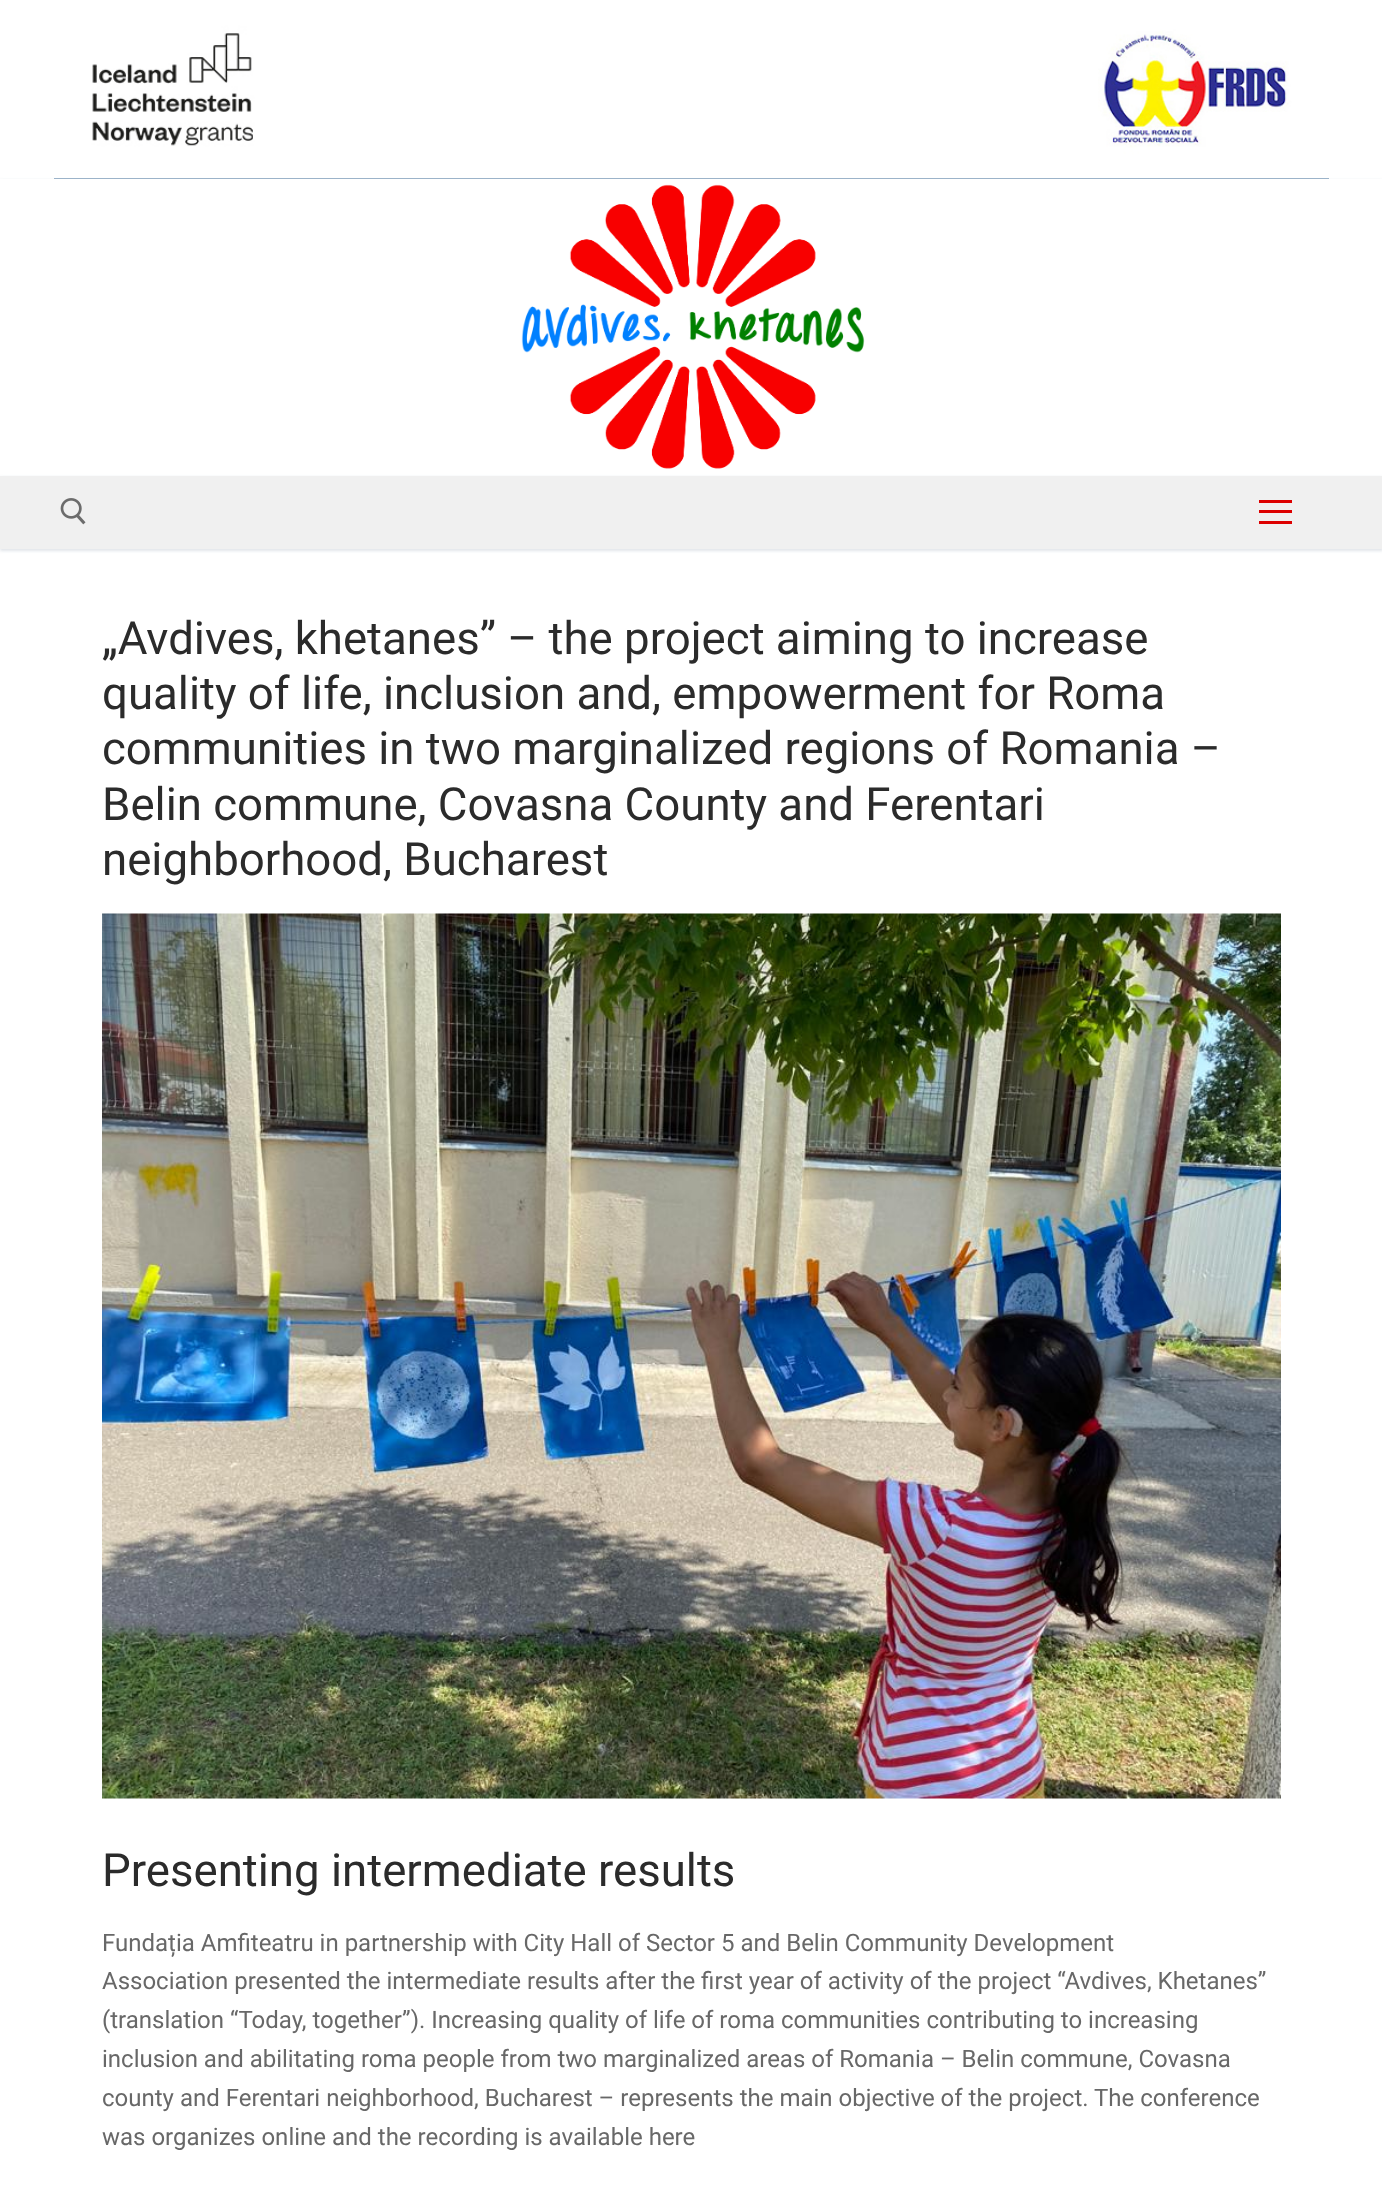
<!DOCTYPE html>
<meta charset="utf-8">
<style>body { margin: 0 } canvas { display: block }</style>
<canvas id="canvas" width="1382" height="2187"></canvas>
<script type="module">
  const canvas = document.getElementById("canvas");
  const ctx = canvas.getContext("2d");
  ctx.miterLimit = 4;
  ctx.fontKerning = "normal";
  async function loadImage(src) {
    const img = new Image();
    img.src = src;
    await img.decode();
    return img;
  }

  ctx.fillStyle = "#ffffff";
  ctx.fillRect(0, 0, 1382, 2187);
  ctx.fillStyle = "#235787";
  ctx.fillRect(54, 178, 1275, 1);
  ctx.drawImage(await loadImage("img1.png"), 54, 0, 1275, 179);
  ctx.fillStyle = "#e1e5ea";
  ctx.filter = "blur(1.5px)";
  ctx.beginPath();
  ctx.rect(0, 180, 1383, 297);
  ctx.fill();
  ctx.filter = "none";
  ctx.fillStyle = "#ffffff";
  ctx.fillRect(0, 179, 1382, 297);
  ctx.drawImage(await loadImage("img2.png"), 521, 184, 344, 285);
  ctx.fillStyle = "#e1e5ea";
  ctx.filter = "blur(1.5px)";
  ctx.beginPath();
  ctx.rect(0, 477, 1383, 74);
  ctx.fill();
  ctx.filter = "none";
  ctx.fillStyle = "#f0f0f0";
  ctx.fillRect(0, 476, 1382, 73);
  ctx.drawImage(await loadImage("img3.png"), 60, 498, 26, 27);
  ctx.fillStyle = "#dd0000";
  ctx.fillRect(1259, 510, 33, 3);
  ctx.fillRect(1259, 500, 33, 3);
  ctx.fillRect(1259, 521, 33, 3);
  ctx.font = "45.6px Roboto";
  ctx.fillStyle = "#2b2b2b";
  ctx.fillText("„Avdives, khetanes” – the project aiming to increase", 102, 654);
  ctx.fillText("quality of life, inclusion and, empowerment for Roma", 102, 709);
  ctx.fillText("communities in two marginalized regions of Romania –", 102, 764);
  ctx.fillText("Belin commune, Covasna County and Ferentari", 102, 820);
  ctx.fillText("neighborhood, Bucharest", 102, 875);
  ctx.drawImage(await loadImage("img4.png"), 102, 913, 1179, 886);
  ctx.fillText("Presenting intermediate results", 102, 1886);
  ctx.font = "24px Roboto";
  ctx.fillStyle = "#686868";
  ctx.fillText("Fundația Amfiteatru in partnership with City Hall of Sector 5 and Belin Community Development", 102, 1951);
  ctx.fillText("Association presented the intermediate results after the first year of activity of the project “Avdives, Khetanes”", 102, 1989);
  ctx.fillText("(translation “Today, together”). Increasing quality of life of roma communities contributing to increasing", 102, 2028);
  ctx.fillText("inclusion and abilitating roma people from two marginalized areas of Romania – Belin commune, Covasna", 102, 2067);
  ctx.fillText("county and Ferentari neighborhood, Bucharest – represents the main objective of the project. The conference", 102, 2106);
  ctx.fillText("was organizes online and the recording is available here", 102, 2145);
</script>
